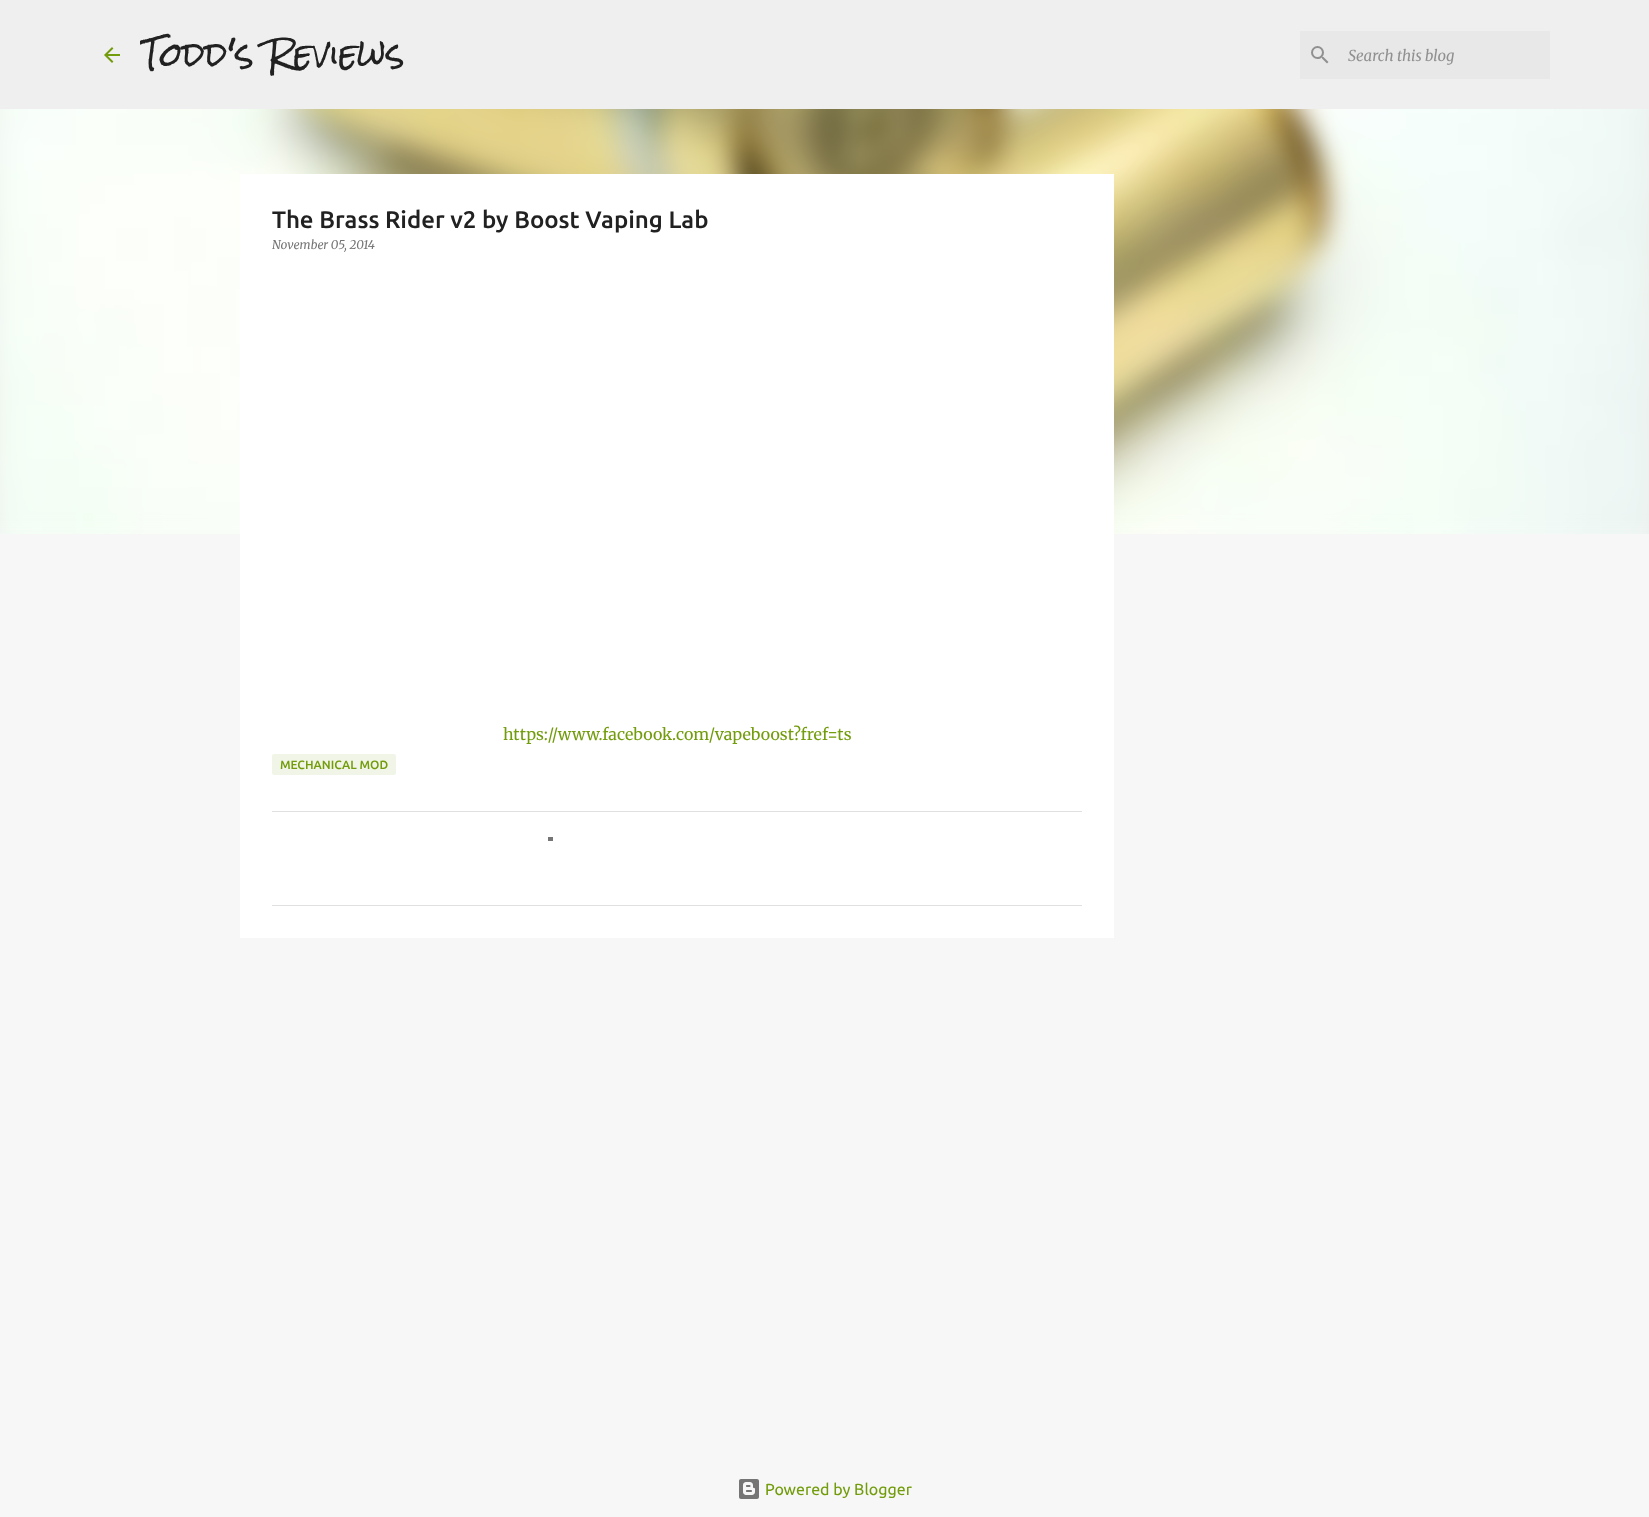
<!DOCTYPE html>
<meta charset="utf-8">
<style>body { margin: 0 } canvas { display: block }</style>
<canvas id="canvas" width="1649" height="1517"></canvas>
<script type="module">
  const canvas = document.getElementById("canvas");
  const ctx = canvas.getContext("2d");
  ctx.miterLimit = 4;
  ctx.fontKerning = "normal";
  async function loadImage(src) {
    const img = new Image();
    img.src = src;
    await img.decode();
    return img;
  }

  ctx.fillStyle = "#f7f7f7";
  ctx.fillRect(0, 0, 1649, 1517);
  ctx.fillStyle = "#efefef";
  ctx.fillRect(0, 0, 1649, 109);
  ctx.drawImage(await loadImage("img1.png"), 104, 47, 16, 16);
  ctx.save();
  ctx.beginPath();
  ctx.rect(140, 16, 264, 77);
  ctx.clip();
  ctx.font = "32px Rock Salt";
  ctx.fillStyle = "#212121";
  ctx.fillText("Todd's Reviews", 140, 67);
  ctx.restore();
  ctx.fillStyle = "#e8e8e8";
  ctx.fillRect(1300, 31, 250, 48);
  ctx.drawImage(await loadImage("img2.png"), 1311, 46, 18, 18);
  ctx.font = "italic 15px Merriweather";
  ctx.fillStyle = "#909090";
  ctx.fillText("Search this blog", 1348, 61);
  ctx.drawImage(await loadImage("img3.png"), 0, 109, 1649, 425);
  ctx.fillStyle = "#ffffff";
  ctx.fillRect(240, 174, 874, 764);
  ctx.fillStyle = "#e0e0e0";
  ctx.fillRect(272, 811, 810, 1);
  ctx.fillRect(272, 905, 810, 1);
  ctx.font = "500 24px Ubuntu";
  ctx.fillStyle = "#212121";
  ctx.fillText("The Brass Rider v2 by Boost Vaping Lab", 272, 228);
  ctx.font = "italic 12px Merriweather";
  ctx.fillStyle = "#757575";
  ctx.fillText("November 05, 2014", 272, 249);
  ctx.font = "300 16px Merriweather";
  ctx.fillStyle = "#729c0b";
  ctx.fillText("https://www.facebook.com/vapeboost?fref=ts", 503, 740);
  ctx.fillStyle = "#f1f5e7";
  ctx.beginPath();
  ctx.roundRect(272, 754, 124, 21, 2);
  ctx.fill();
  ctx.font = "500 12px Ubuntu";
  ctx.fillStyle = "#729c0b";
  ctx.fillText("MECHANICAL MOD", 280, 769);
  ctx.drawImage(await loadImage("img4.png"), 739, 1479, 20, 20);
  ctx.font = "16px Ubuntu";
  ctx.fillText("Powered by Blogger", 765, 1495);
  ctx.fillStyle = "#757575";
  ctx.fillRect(548, 837, 5, 4);
</script>
